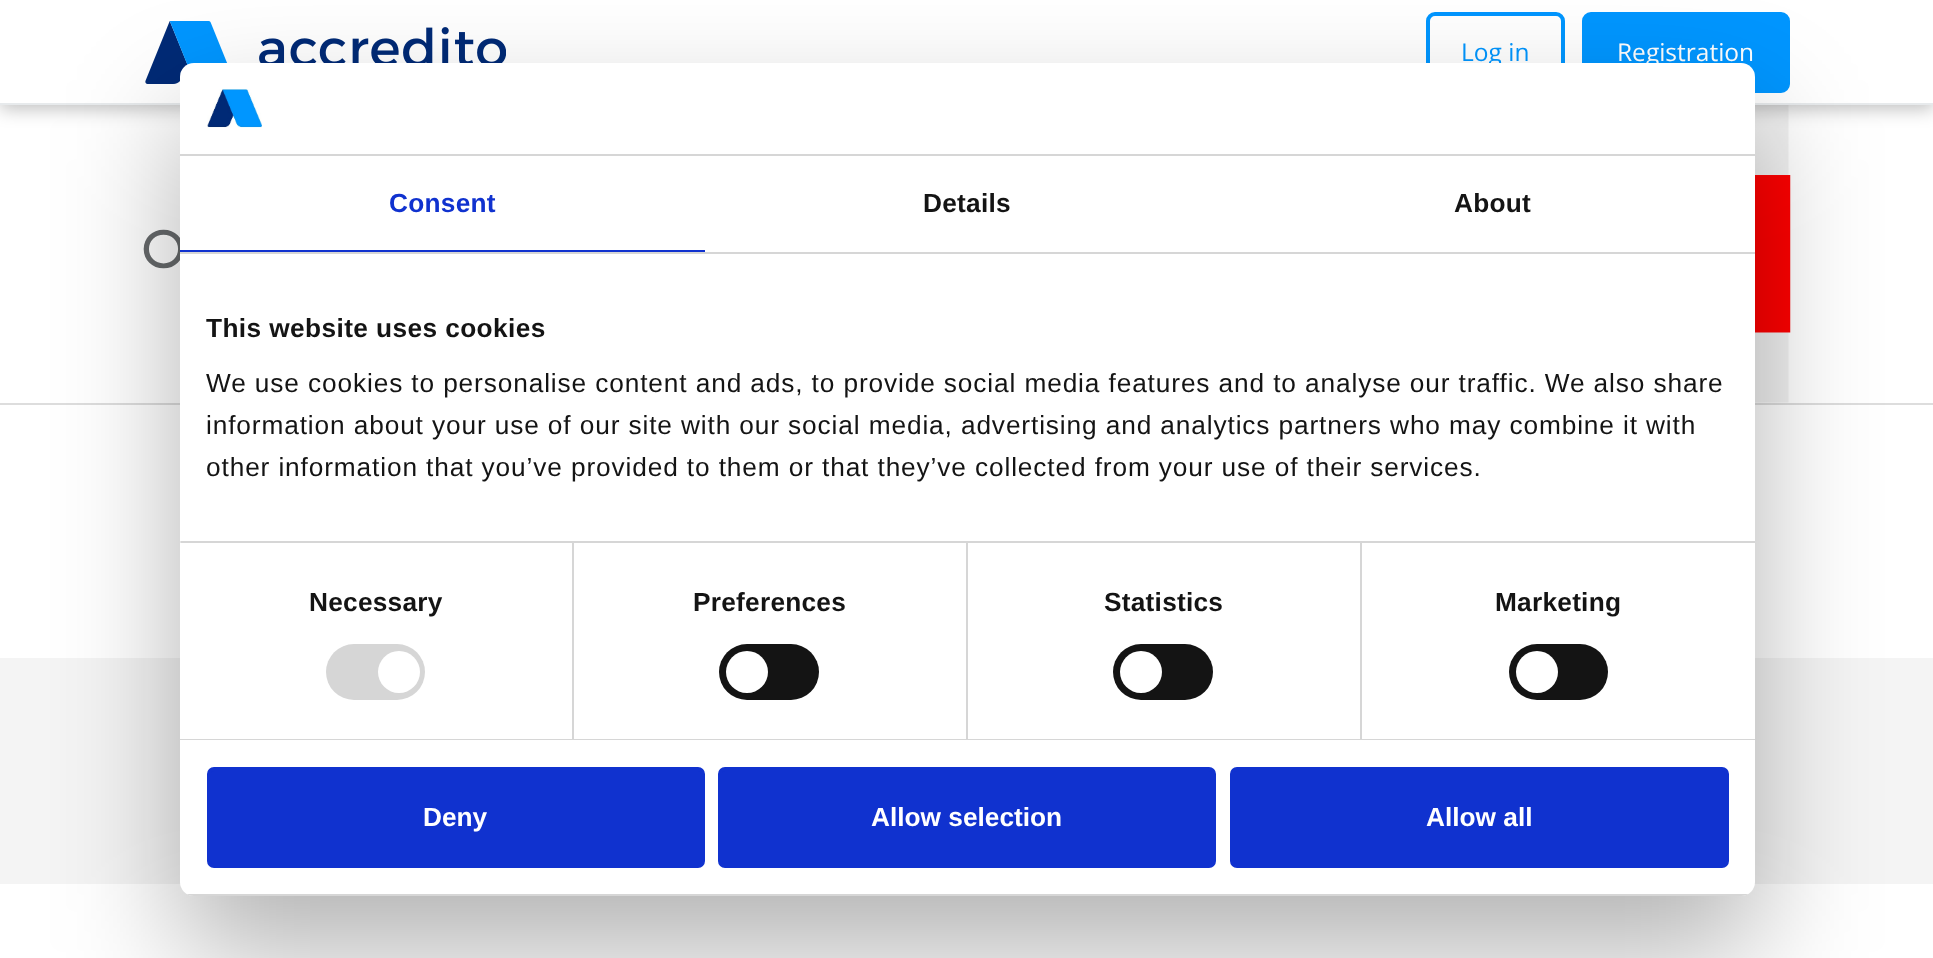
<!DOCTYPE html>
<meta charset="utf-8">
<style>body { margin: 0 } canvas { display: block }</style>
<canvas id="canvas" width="1933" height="958"></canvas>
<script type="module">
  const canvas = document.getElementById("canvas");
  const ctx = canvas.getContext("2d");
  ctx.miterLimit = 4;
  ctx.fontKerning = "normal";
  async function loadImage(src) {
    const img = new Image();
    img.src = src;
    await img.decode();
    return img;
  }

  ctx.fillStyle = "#ffffff";
  ctx.fillRect(0, 0, 1933, 958);
  ctx.drawImage(await loadImage("img2.png"), 1755, 105, 34, 298);
  ctx.fillStyle = "rgba(0, 0, 0, 0.25)";
  ctx.filter = "blur(9px)";
  ctx.beginPath();
  ctx.rect(0, 4, 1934, 105);
  ctx.fill();
  ctx.filter = "none";
  ctx.fillStyle = "#ffffff";
  ctx.fillRect(0, 0, 1933, 103);
  ctx.fillStyle = "#e7eaec";
  ctx.fillRect(0, 103, 1933, 2);
  ctx.drawImage(await loadImage("img1.png"), 145, 21, 361, 63);
  ctx.beginPath();
  ctx.roundRect(1428, 14, 135, 77, 7);
  ctx.strokeStyle = "#0096ff";
  ctx.lineWidth = 4;
  ctx.stroke();
  ctx.font = "24.5px Open Sans";
  ctx.fillStyle = "#0096ff";
  ctx.fillText("Log in", 1461, 61);
  ctx.beginPath();
  ctx.roundRect(1584, 14, 204, 77, 7);
  ctx.fill();
  ctx.stroke();
  ctx.fillStyle = "#ffffff";
  ctx.fillText("Registration", 1617, 61);
  ctx.font = "bold 52px Montserrat";
  ctx.fillStyle = "#676a6c";
  ctx.fillText("O", 141, 268);
  ctx.drawImage(await loadImage("img3.png"), 1755, 175, 36, 158);
  ctx.fillStyle = "#dddddd";
  ctx.fillRect(0, 403, 1933, 2);
  ctx.fillStyle = "#f4f4f4";
  ctx.fillRect(0, 658, 1933, 226);
  ctx.fillStyle = "rgba(0, 0, 0, 0.3)";
  ctx.filter = "blur(59.5px)";
  ctx.beginPath();
  ctx.roundRect(180, 119, 1575, 833, 14);
  ctx.fill();
  ctx.filter = "none";
  ctx.fillStyle = "#ffffff";
  ctx.beginPath();
  ctx.roundRect(180, 63, 1575, 833, 14);
  ctx.fill();
  ctx.fillStyle = "#d6d6d6";
  ctx.fillRect(180, 154, 1575, 2);
  ctx.drawImage(await loadImage("img4.png"), 207, 89, 55, 39);
  ctx.fillRect(180, 252, 1575, 2);
  ctx.fillStyle = "#1032cf";
  ctx.fillRect(180, 250, 525, 2);
  ctx.letterSpacing = "0.25px";
  ctx.font = "bold 26.25px Liberation Sans";
  ctx.fillText("Consent", 389, 212);
  ctx.fillStyle = "#141414";
  ctx.fillText("Details", 923, 212);
  ctx.fillText("About", 1454, 212);
  ctx.fillStyle = "#d6d6d6";
  ctx.fillRect(180, 541, 1575, 2);
  ctx.letterSpacing = "0.4px";
  ctx.fillStyle = "#141414";
  ctx.fillText("This website uses cookies", 206, 337);
  ctx.letterSpacing = "0.88px";
  ctx.font = "26.25px Liberation Sans";
  ctx.fillText("We use cookies to personalise content and ads, to provide social media features and to analyse our traffic. We also share", 206, 392);
  ctx.fillText("information about your use of our site with our social media, advertising and analytics partners who may combine it with", 206, 434);
  ctx.fillText("other information that you’ve provided to them or that they’ve collected from your use of their services.", 206, 476);
  ctx.fillStyle = "#d6d6d6";
  ctx.fillRect(180, 739, 1575, 1);
  ctx.fillStyle = "#e5e5e5";
  ctx.fillRect(180, 541, 1, 2);
  ctx.fillStyle = "#d6d6d6";
  ctx.fillRect(572, 543, 2, 196);
  ctx.letterSpacing = "0.25px";
  ctx.font = "bold 26.25px Liberation Sans";
  ctx.fillStyle = "#141414";
  ctx.fillText("Necessary", 309, 611);
  ctx.fillStyle = "#d6d6d6";
  ctx.beginPath();
  ctx.roundRect(326, 644, 99, 56, 28);
  ctx.fill();
  ctx.fillStyle = "#ffffff";
  ctx.beginPath();
  ctx.arc(399, 672, 21, 0, Math.PI * 2);
  ctx.fill();
  ctx.fillStyle = "#d6d6d6";
  ctx.fillRect(966, 543, 2, 196);
  ctx.fillStyle = "#141414";
  ctx.fillText("Preferences", 693, 611);
  ctx.beginPath();
  ctx.roundRect(719, 644, 100, 56, 28);
  ctx.fill();
  ctx.fillStyle = "#ffffff";
  ctx.beginPath();
  ctx.arc(747, 672, 21, 0, Math.PI * 2);
  ctx.fill();
  ctx.fillStyle = "#d6d6d6";
  ctx.fillRect(1360, 543, 2, 196);
  ctx.fillStyle = "#141414";
  ctx.fillText("Statistics", 1104, 611);
  ctx.beginPath();
  ctx.roundRect(1113, 644, 100, 56, 28);
  ctx.fill();
  ctx.fillStyle = "#ffffff";
  ctx.beginPath();
  ctx.arc(1141, 672, 21, 0, Math.PI * 2);
  ctx.fill();
  ctx.fillStyle = "#141414";
  ctx.fillText("Marketing", 1495, 611);
  ctx.beginPath();
  ctx.roundRect(1509, 644, 99, 56, 28);
  ctx.fill();
  ctx.fillStyle = "#ffffff";
  ctx.beginPath();
  ctx.arc(1537, 672, 21, 0, Math.PI * 2);
  ctx.fill();
  ctx.save();
  ctx.beginPath();
  ctx.roundRect(180, 63, 1575, 833, 14);
  ctx.clip();
  ctx.fillStyle = "#d6d6d6";
  ctx.fillRect(180, 894, 1575, 2);
  ctx.restore();
  ctx.fillStyle = "#1032cf";
  ctx.beginPath();
  ctx.roundRect(209, 769, 494, 97, 5);
  ctx.fill();
  ctx.strokeStyle = "#1032cf";
  ctx.stroke();
  ctx.letterSpacing = "0px";
  ctx.fillStyle = "#ffffff";
  ctx.fillText("Deny", 423, 826);
  ctx.fillStyle = "#1032cf";
  ctx.beginPath();
  ctx.roundRect(720, 769, 494, 97, 5);
  ctx.fill();
  ctx.stroke();
  ctx.fillStyle = "#ffffff";
  ctx.fillText("Allow selection", 871, 826);
  ctx.fillStyle = "#1032cf";
  ctx.beginPath();
  ctx.roundRect(1232, 769, 495, 97, 5);
  ctx.fill();
  ctx.stroke();
  ctx.fillStyle = "#ffffff";
  ctx.fillText("Allow all", 1426, 826);
</script>
